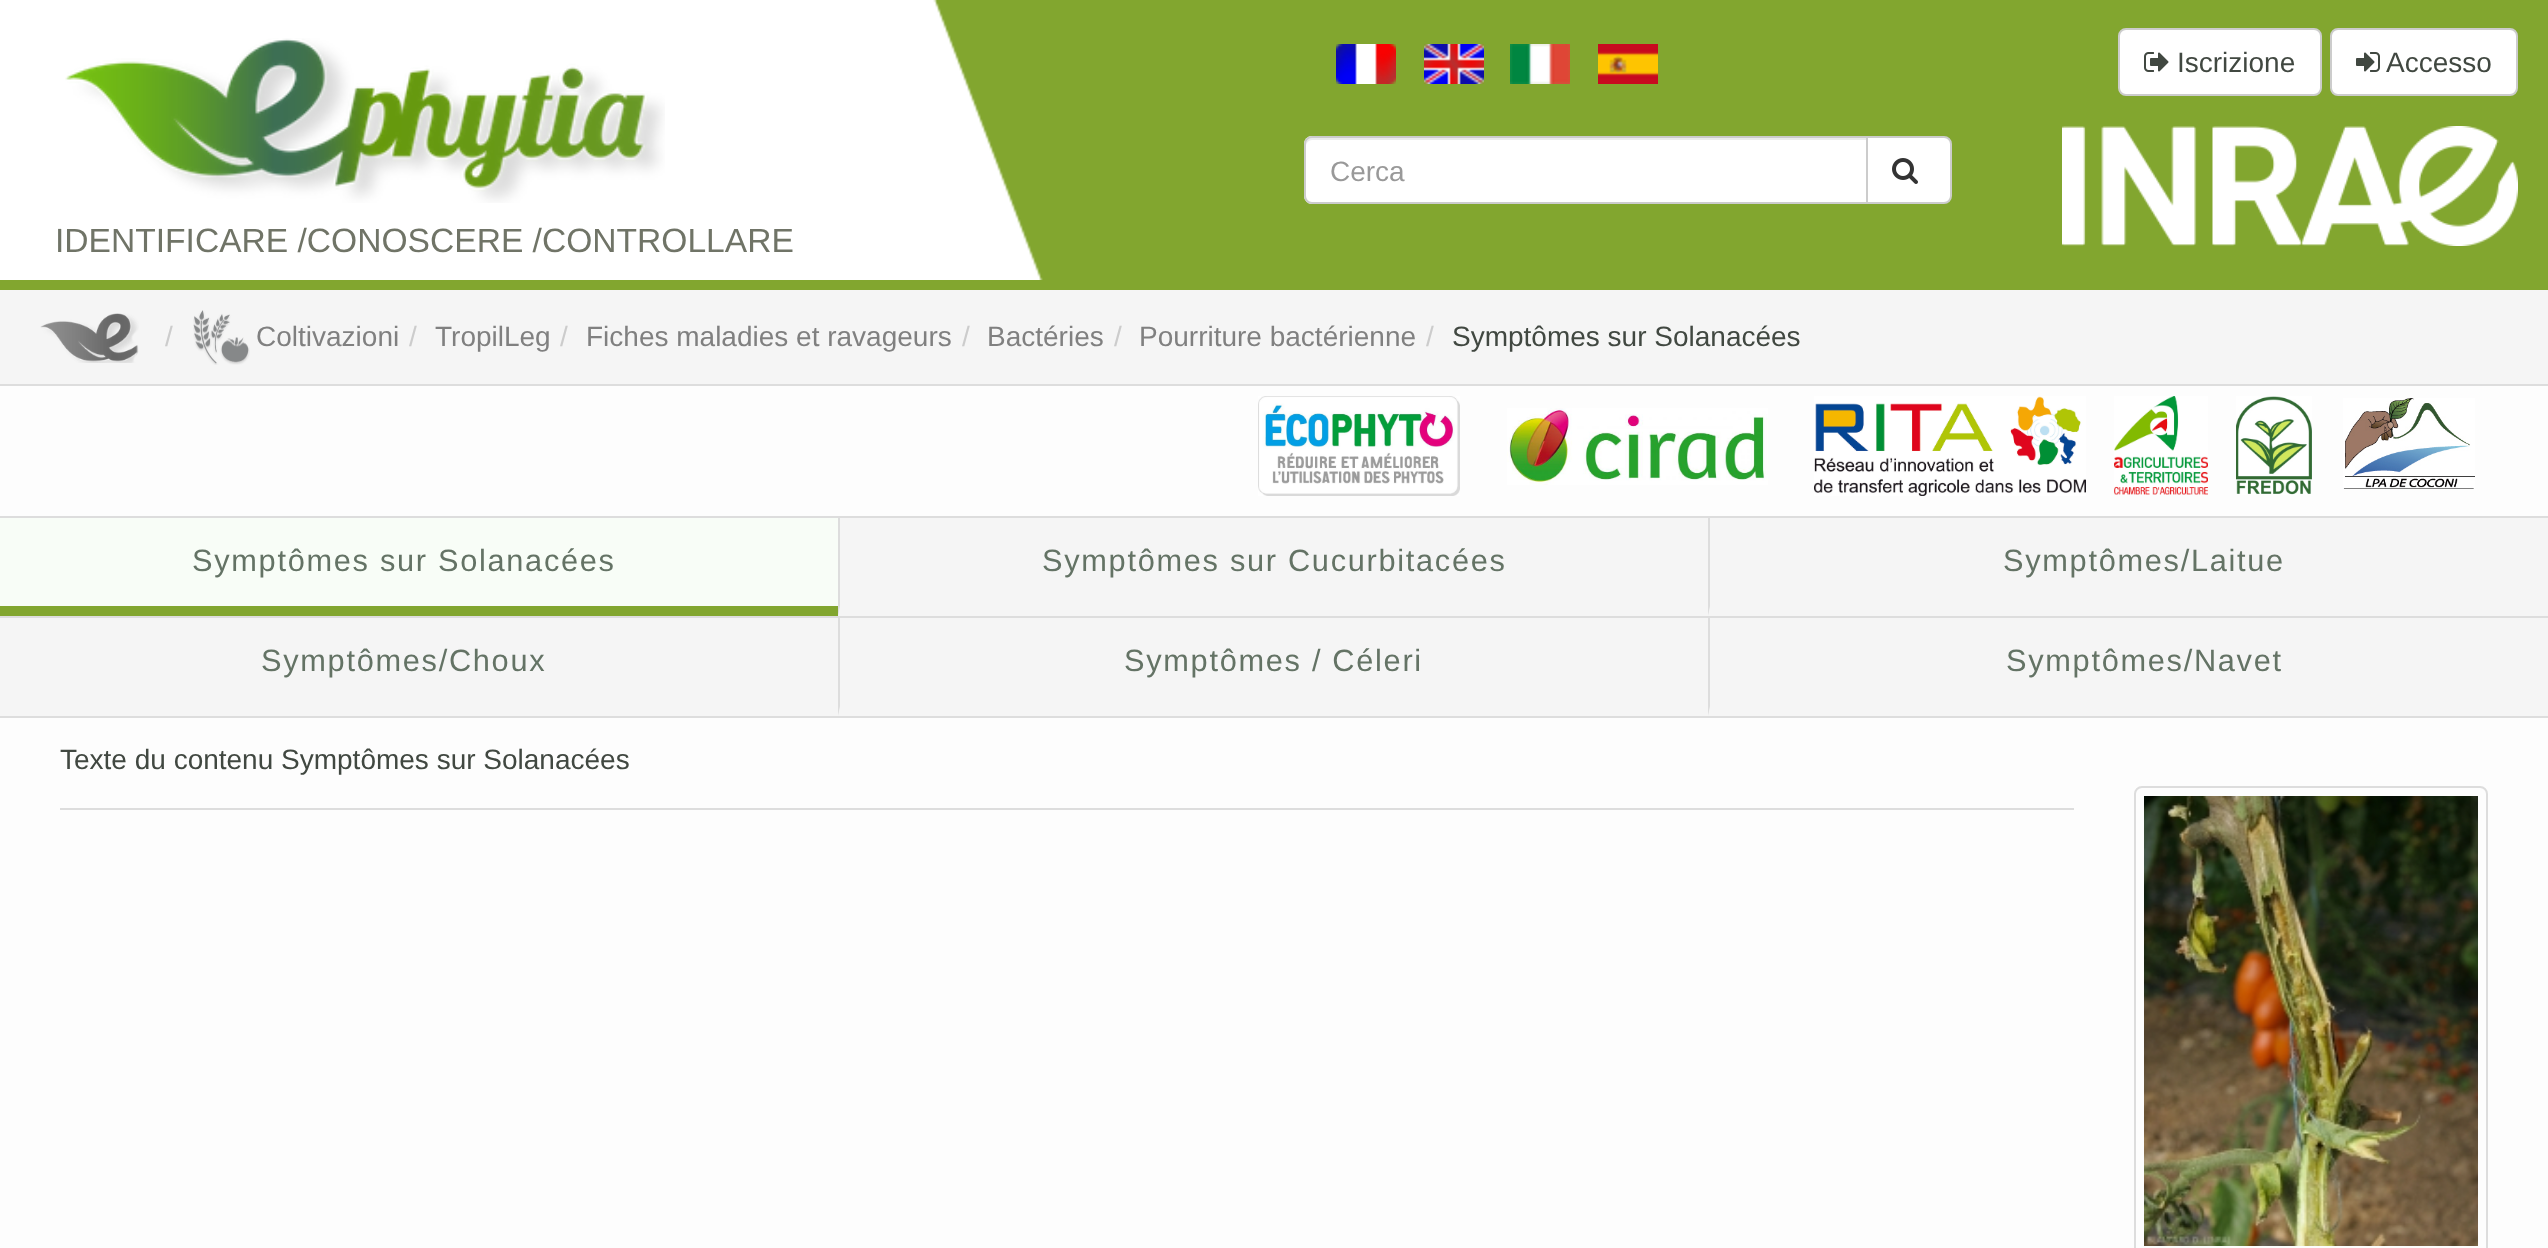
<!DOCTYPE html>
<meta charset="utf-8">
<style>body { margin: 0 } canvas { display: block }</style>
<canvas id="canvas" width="2548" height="1248"></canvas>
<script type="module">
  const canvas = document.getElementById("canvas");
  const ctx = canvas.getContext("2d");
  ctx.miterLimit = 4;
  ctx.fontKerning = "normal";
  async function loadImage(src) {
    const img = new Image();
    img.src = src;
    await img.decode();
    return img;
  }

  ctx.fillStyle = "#fdfdfd";
  ctx.fillRect(0, 0, 2548, 1248);
  ctx.fillStyle = "#82a62f";
  ctx.fillRect(0, 0, 2548, 290);
  ctx.drawImage(await loadImage("img1.png"), 850, 0, 193, 280);
  ctx.drawImage(await loadImage("img2.png"), 1336, 44, 60, 40);
  ctx.drawImage(await loadImage("img3.png"), 1424, 44, 60, 40);
  ctx.drawImage(await loadImage("img4.png"), 1510, 44, 60, 40);
  ctx.drawImage(await loadImage("img5.png"), 1598, 44, 60, 40);
  ctx.fillStyle = "#ffffff";
  ctx.beginPath();
  ctx.roundRect(2119, 29, 202, 66, 7);
  ctx.fill();
  ctx.strokeStyle = "#cccccc";
  ctx.lineWidth = 2;
  ctx.stroke();
  ctx.drawImage(await loadImage("img6.png"), 2144, 52, 25, 20);
  ctx.font = "28px Liberation Sans";
  ctx.fillStyle = "#414841";
  ctx.fillText("Iscrizione", 2177, 72);
  ctx.fillStyle = "#ffffff";
  ctx.beginPath();
  ctx.roundRect(2331, 29, 186, 66, 7);
  ctx.fill();
  ctx.stroke();
  ctx.drawImage(await loadImage("img7.png"), 2356, 52, 24, 20);
  ctx.fillStyle = "#414841";
  ctx.fillText("Accesso", 2386, 72);
  ctx.fillStyle = "#ffffff";
  ctx.beginPath();
  ctx.roundRect(1304, 136, 564, 68, [8, 0, 0, 8]);
  ctx.fill();
  ctx.fillStyle = "#ececec";
  ctx.beginPath();
  ctx.moveTo(1312, 140);
  ctx.lineTo(1866, 140);
  ctx.lineTo(1866, 138);
  ctx.lineTo(1312, 138);
  ctx.bezierCurveTo(1309, 138, 1306, 141, 1306, 144);
  ctx.lineTo(1306, 146);
  ctx.bezierCurveTo(1306, 143, 1309, 140, 1312, 140);
  ctx.closePath();
  ctx.fill();
  ctx.beginPath();
  ctx.roundRect(1305, 137, 562, 66, [7, 0, 0, 7]);
  ctx.stroke();
  ctx.fillStyle = "#999999";
  ctx.fillText("Cerca", 1330, 181);
  ctx.fillStyle = "#ffffff";
  ctx.beginPath();
  ctx.roundRect(1867, 137, 84, 66, [0, 7, 7, 0]);
  ctx.fill();
  ctx.stroke();
  ctx.drawImage(await loadImage("img8.png"), 1892, 158, 26, 26);
  ctx.drawImage(await loadImage("img9.png"), 2062, 126, 456, 120);
  ctx.fillRect(0, 0, 850, 280);
  ctx.drawImage(await loadImage("img10.png"), 65, 38, 600, 165);
  ctx.font = "33.6px Liberation Sans";
  ctx.fillStyle = "#707467";
  ctx.fillText("IDENTIFICARE /CONOSCERE /CONTROLLARE", 55, 252);
  ctx.fillStyle = "#dddddd";
  ctx.fillRect(0, 384, 2548, 2);
  ctx.fillStyle = "#f5f5f5";
  ctx.fillRect(0, 290, 2548, 94);
  ctx.drawImage(await loadImage("img11.png"), 40, 313, 99, 50);
  ctx.font = "28px Liberation Sans";
  ctx.fillStyle = "#cccccc";
  ctx.fillText("/", 165, 346);
  ctx.drawImage(await loadImage("img12.png"), 193, 310, 57, 55);
  ctx.fillStyle = "#808080";
  ctx.fillText("Coltivazioni", 256, 346);
  ctx.fillStyle = "#cccccc";
  ctx.fillText("/", 409, 346);
  ctx.fillStyle = "#808080";
  ctx.fillText("TropilLeg", 435, 346);
  ctx.fillStyle = "#cccccc";
  ctx.fillText("/", 560, 346);
  ctx.fillStyle = "#808080";
  ctx.fillText("Fiches maladies et ravageurs", 586, 346);
  ctx.fillStyle = "#cccccc";
  ctx.fillText("/", 962, 346);
  ctx.fillStyle = "#808080";
  ctx.fillText("Bactéries", 987, 346);
  ctx.fillStyle = "#cccccc";
  ctx.fillText("/", 1114, 346);
  ctx.fillStyle = "#808080";
  ctx.fillText("Pourriture bactérienne", 1139, 346);
  ctx.fillStyle = "#cccccc";
  ctx.fillText("/", 1426, 346);
  ctx.fillStyle = "#414841";
  ctx.fillText("Symptômes sur Solanacées", 1452, 346);
  ctx.drawImage(await loadImage("img13.png"), 1258, 396, 202, 100);
  ctx.drawImage(await loadImage("img14.png"), 1507, 408, 261, 77);
  ctx.drawImage(await loadImage("img15.png"), 1814, 396, 272, 100);
  ctx.drawImage(await loadImage("img16.png"), 2114, 396, 94, 99);
  ctx.drawImage(await loadImage("img17.png"), 2236, 396, 76, 99);
  ctx.drawImage(await loadImage("img18.png"), 2343, 398, 132, 91);
  ctx.fillStyle = "#dddddd";
  ctx.fillRect(0, 716, 2548, 2);
  ctx.fillRect(0, 516, 2548, 2);
  ctx.fillStyle = "#82a62f";
  ctx.beginPath();
  ctx.moveTo(838, 616);
  ctx.lineTo(-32, 616);
  ctx.lineTo(-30, 606);
  ctx.lineTo(838, 606);
  ctx.closePath();
  ctx.fill();
  ctx.fillStyle = "#f8fdf7";
  ctx.fillRect(0, 518, 838, 88);
  ctx.letterSpacing = "1.7px";
  ctx.font = "30.75px Liberation Sans";
  ctx.fillStyle = "#647365";
  ctx.fillText("Symptômes sur Solanacées", 192, 571);
  ctx.fillStyle = "#f5f5f5";
  ctx.fillRect(838, 518, 1710, 98);
  ctx.fillStyle = "#dddddd";
  ctx.beginPath();
  ctx.moveTo(838, 616);
  ctx.lineTo(838, 516);
  ctx.lineTo(840, 518);
  ctx.lineTo(840, 606);
  ctx.closePath();
  ctx.fill();
  ctx.fillStyle = "#647365";
  ctx.fillText("Symptômes sur Cucurbitacées", 1042, 571);
  ctx.fillStyle = "#dddddd";
  ctx.beginPath();
  ctx.moveTo(1708, 616);
  ctx.lineTo(1708, 516);
  ctx.lineTo(1710, 518);
  ctx.lineTo(1710, 606);
  ctx.closePath();
  ctx.fill();
  ctx.fillStyle = "#647365";
  ctx.fillText("Symptômes/Laitue", 2003, 571);
  ctx.fillStyle = "#f5f5f5";
  ctx.fillRect(0, 618, 2548, 98);
  ctx.fillStyle = "#dddddd";
  ctx.fillRect(0, 616, 2548, 2);
  ctx.fillStyle = "#647365";
  ctx.fillText("Symptômes/Choux", 261, 671);
  ctx.fillStyle = "#dddddd";
  ctx.beginPath();
  ctx.moveTo(838, 716);
  ctx.lineTo(838, 616);
  ctx.lineTo(840, 618);
  ctx.lineTo(840, 706);
  ctx.closePath();
  ctx.fill();
  ctx.fillStyle = "#647365";
  ctx.fillText("Symptômes / Céleri", 1124, 671);
  ctx.fillStyle = "#dddddd";
  ctx.beginPath();
  ctx.moveTo(1708, 716);
  ctx.lineTo(1708, 616);
  ctx.lineTo(1710, 618);
  ctx.lineTo(1710, 706);
  ctx.closePath();
  ctx.fill();
  ctx.fillStyle = "#647365";
  ctx.fillText("Symptômes/Navet", 2006, 671);
  ctx.letterSpacing = "0px";
  ctx.font = "28px Liberation Sans";
  ctx.fillStyle = "#414841";
  ctx.fillText("Texte du contenu Symptômes sur Solanacées", 60, 769);
  ctx.fillStyle = "#dddddd";
  ctx.fillRect(60, 808, 2014, 2);
  ctx.beginPath();
  ctx.roundRect(2135, 787, 352, 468, 7);
  ctx.strokeStyle = "#dddddd";
  ctx.stroke();
  ctx.drawImage(await loadImage("img19.png"), 2144, 796, 334, 450);
</script>
